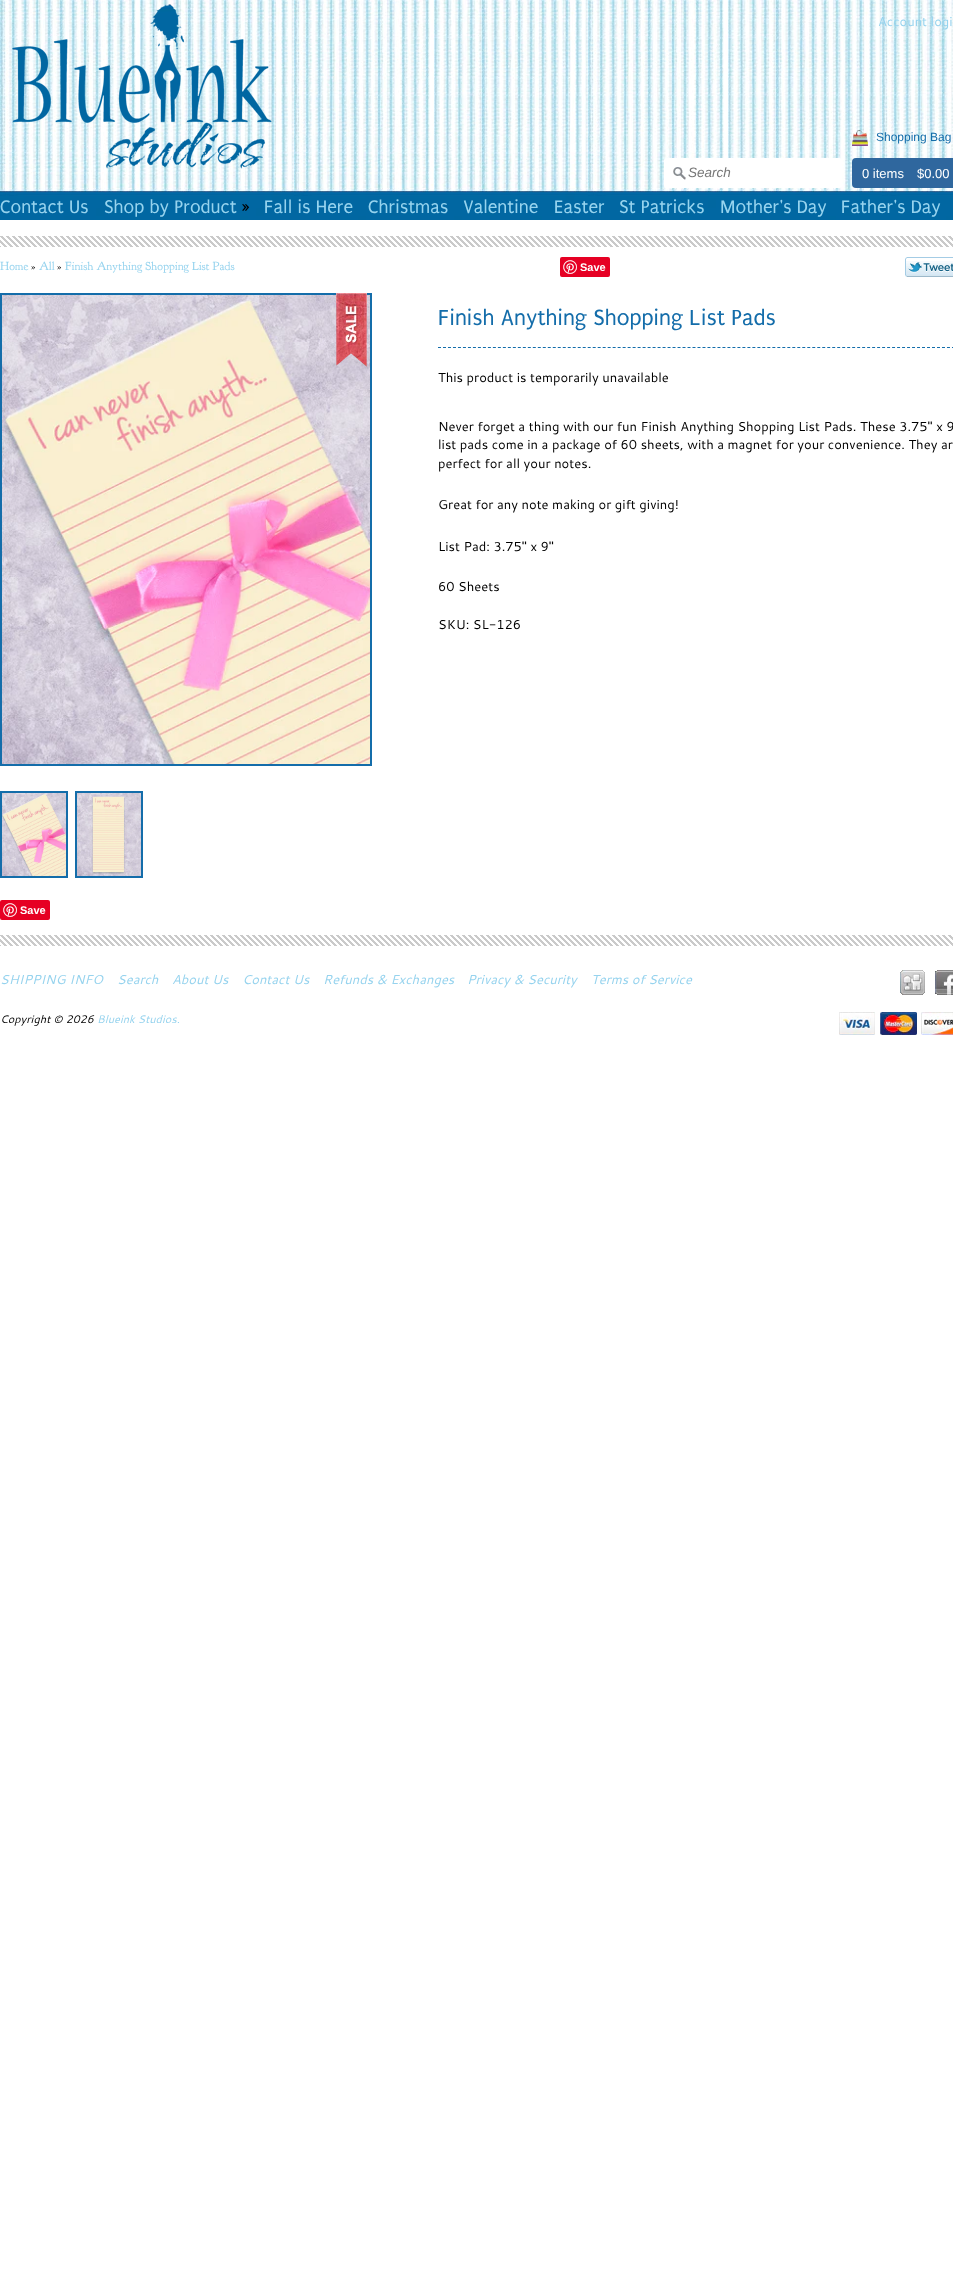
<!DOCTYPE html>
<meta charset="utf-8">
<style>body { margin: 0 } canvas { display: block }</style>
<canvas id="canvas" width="953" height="2275"></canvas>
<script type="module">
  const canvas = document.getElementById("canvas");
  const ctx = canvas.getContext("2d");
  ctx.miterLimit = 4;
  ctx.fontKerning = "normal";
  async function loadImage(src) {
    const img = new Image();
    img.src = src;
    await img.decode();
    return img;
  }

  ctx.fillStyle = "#ffffff";
  ctx.fillRect(0, 0, 953, 2275);
  ctx.drawImage(await loadImage("img1.png"), 0, 0, 953, 220);
  ctx.font = "13px Cantarell";
  ctx.fillStyle = "#96d3ee";
  ctx.fillText("Account logi", 878, 26);
  ctx.drawImage(await loadImage("img2.png"), 12, 4, 260, 165);
  ctx.fillStyle = "#ffffff";
  ctx.beginPath();
  ctx.roundRect(664, 158, 178, 30, 3);
  ctx.fill();
  ctx.drawImage(await loadImage("img3.png"), 673, 167, 13, 13);
  ctx.font = "italic 13.5px Liberation Sans";
  ctx.fillStyle = "#777777";
  ctx.fillText("Search", 688, 177);
  ctx.fillStyle = "#2f679e";
  ctx.beginPath();
  ctx.roundRect(852, 158, 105, 30, 4);
  ctx.fill();
  ctx.drawImage(await loadImage("img4.png"), 852, 130, 16, 16);
  ctx.font = "12px Liberation Sans";
  ctx.fillStyle = "#146daa";
  ctx.fillText("Shopping Bag", 876, 141);
  ctx.font = "13px Liberation Sans";
  ctx.fillStyle = "#ffffff";
  ctx.fillText("0 items", 862, 178);
  ctx.fillText("$0.00", 917, 178);
  ctx.drawImage(await loadImage("img5.png"), 0, 236, 953, 11);
  ctx.font = "19.5px Puritan";
  ctx.fillStyle = "#96d3ee";
  ctx.fillText("Contact Us", 0, 213);
  ctx.fillText("Shop by Product", 104, 213);
  ctx.fillStyle = "#000000";
  ctx.fillText("»", 242, 213);
  ctx.fillStyle = "#96d3ee";
  ctx.fillText("Fall is Here", 264, 213);
  ctx.fillText("Christmas", 368, 213);
  ctx.fillText("Valentine", 463, 213);
  ctx.fillText("Easter", 554, 213);
  ctx.fillText("St Patricks", 619, 213);
  ctx.fillText("Mother's Day", 720, 213);
  ctx.fillText("Father's Day", 841, 213);
  ctx.font = "12px 'Goudy Bookletter 1911'";
  ctx.fillText("Home", 0, 270);
  ctx.fillStyle = "#000000";
  ctx.fillText("»", 31, 270);
  ctx.fillStyle = "#96d3ee";
  ctx.fillText("All", 39, 270);
  ctx.fillStyle = "#000000";
  ctx.fillText("»", 57, 270);
  ctx.fillStyle = "#96d3ee";
  ctx.fillText("Finish Anything Shopping List Pads", 65, 270);
  ctx.fillStyle = "#e60023";
  ctx.beginPath();
  ctx.roundRect(560, 257, 50, 20, 2);
  ctx.fill();
  ctx.drawImage(await loadImage("img6.png"), 563, 260, 14, 14);
  ctx.font = "bold 11px Liberation Sans";
  ctx.fillStyle = "#ffffff";
  ctx.fillText("Save", 580, 271);
  ctx.drawImage(await loadImage("img7.png"), 905, 257, 48, 20);
  ctx.strokeStyle = "#146daa";
  ctx.lineWidth = 2;
  ctx.strokeRect(1, 294, 370, 471);
  ctx.drawImage(await loadImage("img8.png"), 2, 295, 368, 469);
  ctx.drawImage(await loadImage("img9.png"), 336, 293, 31, 74);
  ctx.strokeRect(1, 792, 66, 85);
  ctx.drawImage(await loadImage("img10.png"), 2, 793, 64, 83);
  ctx.strokeRect(76, 792, 66, 85);
  ctx.drawImage(await loadImage("img11.png"), 77, 793, 64, 83);
  ctx.beginPath();
  ctx.moveTo(438, 347.5);
  ctx.lineTo(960, 347.5);
  ctx.lineWidth = 1;
  ctx.setLineDash([3, 1.99]);
  ctx.stroke();
  ctx.font = "23.4px Puritan";
  ctx.fillStyle = "#146daa";
  ctx.fillText("Finish Anything Shopping List Pads", 438, 325);
  ctx.font = "13px Cantarell";
  ctx.fillStyle = "#000000";
  ctx.fillText("This product is temporarily unavailable", 438, 382);
  ctx.fillText("Never forget a thing with our fun Finish Anything Shopping List Pads. These 3.75\" x 9", 438, 431);
  ctx.fillText("list pads come in a package of 60 sheets, with a magnet for your convenience. They ar", 438, 449);
  ctx.fillText("perfect for all your notes.", 438, 468);
  ctx.fillText("Great for any note making or gift giving!", 438, 509);
  ctx.fillText("List Pad: 3.75\" x 9\"", 438, 551);
  ctx.fillText("60 Sheets", 438, 591);
  ctx.fillText("SKU: SL-126", 438, 629);
  ctx.fillStyle = "#e60023";
  ctx.beginPath();
  ctx.roundRect(0, 900, 50, 20, 2);
  ctx.fill();
  ctx.drawImage(await loadImage("img6.png"), 3, 903, 14, 14);
  ctx.font = "bold 11px Liberation Sans";
  ctx.fillStyle = "#ffffff";
  ctx.fillText("Save", 20, 914);
  ctx.drawImage(await loadImage("img5.png"), 0, 935, 953, 11);
  ctx.font = "italic 13px Cantarell";
  ctx.fillStyle = "#96d3ee";
  ctx.fillText("SHIPPING INFO", 0, 984);
  ctx.fillText("Search", 117, 984);
  ctx.fillText("About Us", 172, 984);
  ctx.fillText("Contact Us", 242, 984);
  ctx.fillText("Refunds & Exchanges", 323, 984);
  ctx.fillText("Privacy & Security", 467, 984);
  ctx.fillText("Terms of Service", 591, 984);
  ctx.drawImage(await loadImage("img12.png"), 900, 970, 25, 25);
  ctx.drawImage(await loadImage("img13.png"), 935, 970, 18, 25);
  ctx.font = "italic 11px Cantarell";
  ctx.fillStyle = "#000000";
  ctx.fillText("Copyright © 2026", 0, 1023);
  ctx.fillStyle = "#96d3ee";
  ctx.fillText("Blueink Studios.", 97, 1023);
  ctx.drawImage(await loadImage("img14.png"), 839, 1012, 36, 23);
  ctx.drawImage(await loadImage("img15.png"), 880, 1012, 37, 23);
  ctx.drawImage(await loadImage("img16.png"), 921, 1012, 32, 23);
</script>
